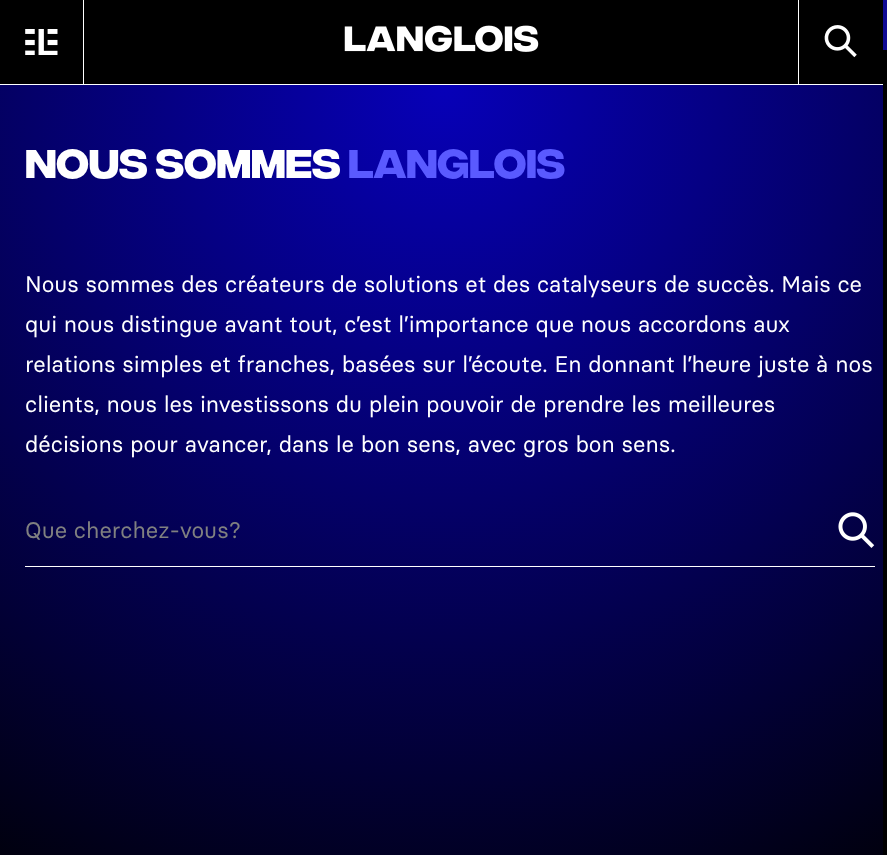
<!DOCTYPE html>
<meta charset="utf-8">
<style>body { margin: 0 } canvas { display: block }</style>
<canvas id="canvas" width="887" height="855"></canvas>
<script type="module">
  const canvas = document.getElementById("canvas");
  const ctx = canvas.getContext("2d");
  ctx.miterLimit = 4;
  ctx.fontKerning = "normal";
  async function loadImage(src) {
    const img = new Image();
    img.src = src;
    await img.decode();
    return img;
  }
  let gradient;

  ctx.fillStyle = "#ffffff";
  ctx.fillRect(0, 0, 887, 855);
  ctx.fillStyle = "#000000";
  ctx.fillRect(0, 0, 883, 84);
  ctx.fillStyle = "#ffffff";
  ctx.fillRect(83, 0, 1, 84);
  ctx.drawImage(await loadImage("img1.png"), 25, 29, 33, 26);
  ctx.drawImage(await loadImage("img2.png"), 344, 25, 195, 27);
  ctx.fillRect(798, 0, 1, 84);
  ctx.drawImage(await loadImage("img3.png"), 824, 25, 33, 33);
  ctx.fillStyle = "#000000";
  ctx.fillRect(883, 50, 4, 805);
  ctx.fillStyle = "#100a94";
  ctx.fillRect(883, 0, 4, 50);
  gradient = ctx.createRadialGradient(444, 85, 0, 444, 85, 1487);
  gradient.addColorStop(0, "#0a00ff");
  gradient.addColorStop(0, "#0700b8");
  gradient.addColorStop(0.65, "#000000");
  ctx.fillStyle = gradient;
  ctx.fillRect(0, 85, 883, 770);
  ctx.letterSpacing = "-0.5px";
  ctx.font = "600 40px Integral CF";
  ctx.fillStyle = "#ffffff";
  ctx.fillText("Nous sommes", 25, 178);
  ctx.fillStyle = "#5a5aff";
  ctx.fillText("Langlois", 348, 178);
  ctx.letterSpacing = "0px";
  ctx.font = "22.5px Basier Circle";
  ctx.fillStyle = "#ffffff";
  ctx.fillText("Nous sommes des créateurs de solutions et des catalyseurs de succès. Mais ce", 25, 292);
  ctx.fillText("qui nous distingue avant tout, c’est l’importance que nous accordons aux", 25, 332);
  ctx.fillText("relations simples et franches, basées sur l’écoute. En donnant l’heure juste à nos", 25, 372);
  ctx.fillText("clients, nous les investissons du plein pouvoir de prendre les meilleures", 25, 412);
  ctx.fillText("décisions pour avancer, dans le bon sens, avec gros bon sens.", 25, 452);
  ctx.fillRect(25, 566, 850, 1);
  ctx.fillStyle = "#808080";
  ctx.fillText("Que cherchez-vous?", 25, 538);
  ctx.drawImage(await loadImage("img4.png"), 838, 512, 37, 36);
</script>
